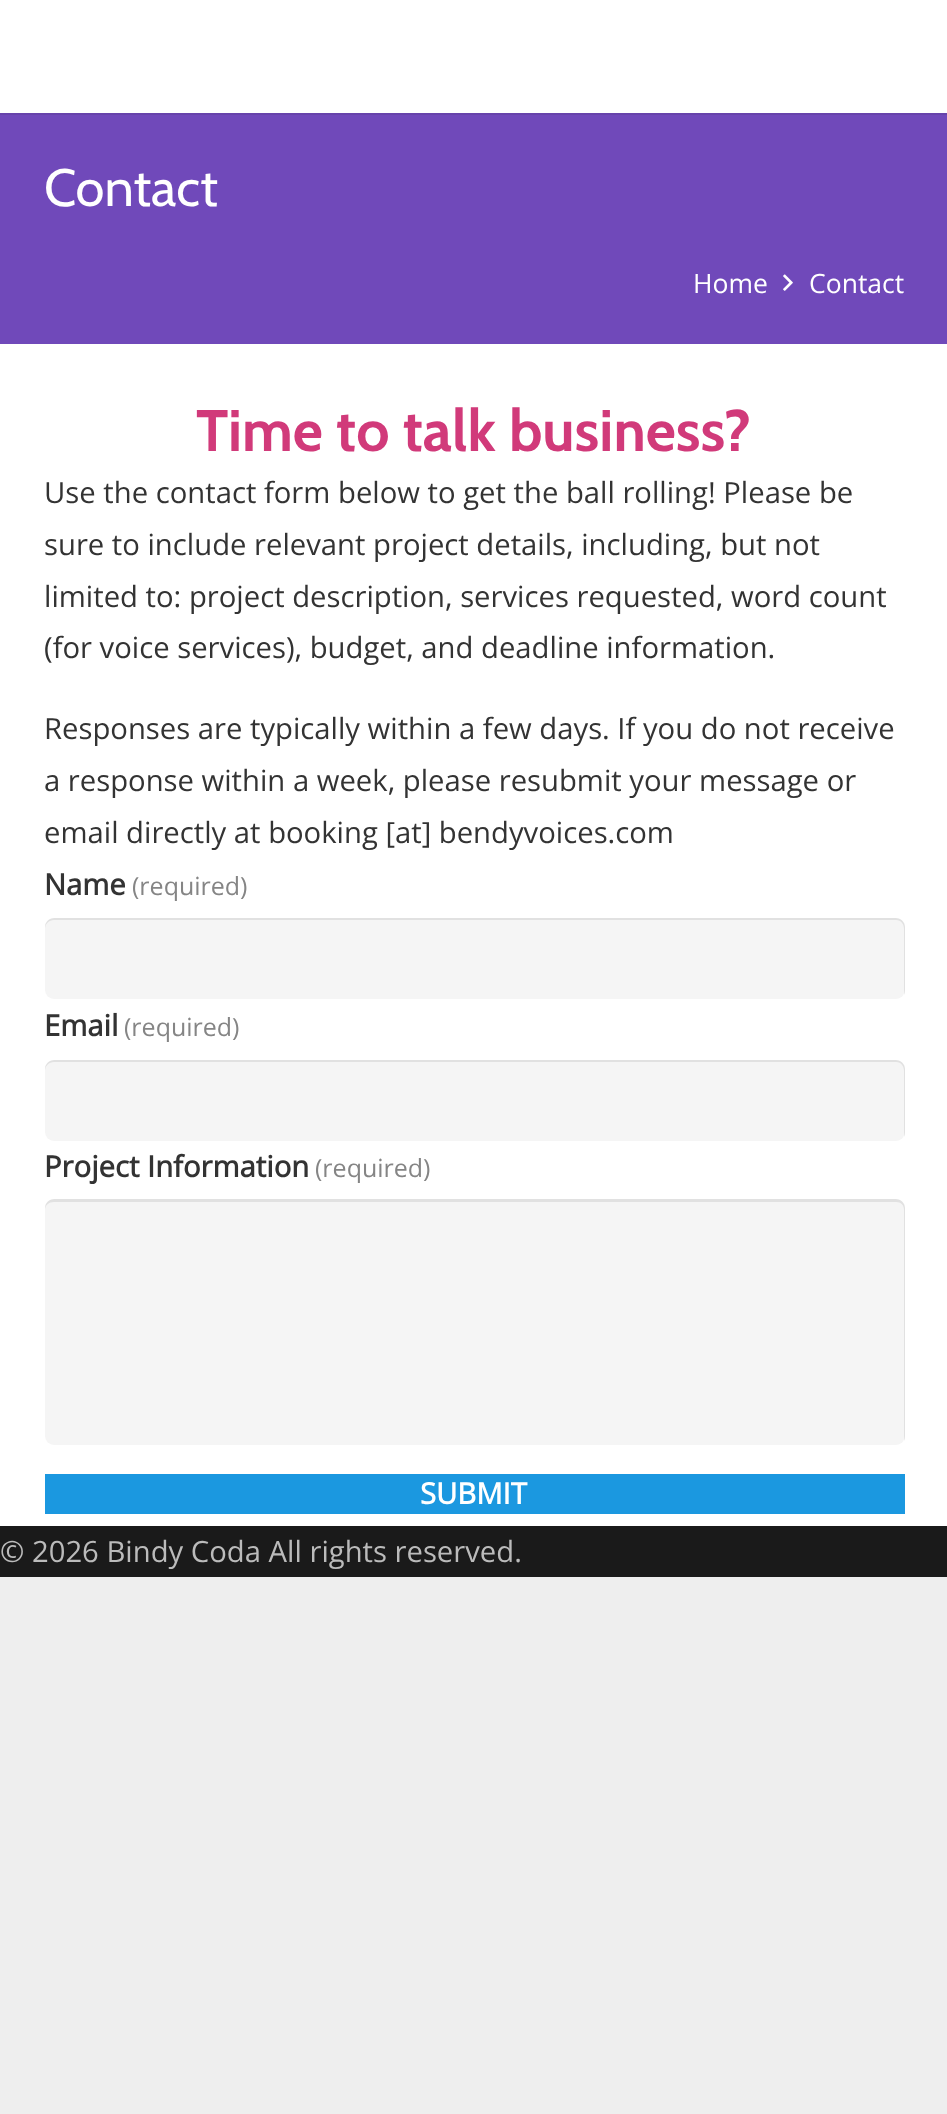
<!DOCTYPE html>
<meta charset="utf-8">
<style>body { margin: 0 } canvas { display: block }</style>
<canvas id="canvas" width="947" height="2114"></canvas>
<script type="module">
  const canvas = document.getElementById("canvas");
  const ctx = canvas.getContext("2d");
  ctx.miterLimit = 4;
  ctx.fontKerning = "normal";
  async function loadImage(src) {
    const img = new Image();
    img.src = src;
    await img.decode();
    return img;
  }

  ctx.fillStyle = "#eeeeee";
  ctx.fillRect(0, 0, 947, 2114);
  ctx.fillStyle = "#ffffff";
  ctx.fillRect(0, 344, 947, 1182);
  ctx.fillStyle = "#6743ab";
  ctx.fillRect(0, 113, 947, 2);
  ctx.fillStyle = "#ffffff";
  ctx.fillRect(0, 0, 947, 113);
  ctx.fillStyle = "#7049ba";
  ctx.fillRect(0, 115, 947, 229);
  ctx.font = "52.5px Cabin";
  ctx.fillStyle = "#ffffff";
  ctx.fillText("Contact", 44, 206);
  ctx.font = "26.5px Open Sans";
  ctx.fillText("Home", 693, 293);
  ctx.drawImage(await loadImage("img1.png"), 783, 274, 10, 17);
  ctx.fillText("Contact", 809, 293);
  ctx.font = "bold 58.5px Cabin";
  ctx.fillStyle = "#d13a7a";
  ctx.fillText("Time to talk business?", 196, 451);
  ctx.font = "29.25px Open Sans";
  ctx.fillStyle = "#333333";
  ctx.fillText("Use the contact form below to get the ball rolling! Please be", 44, 503);
  ctx.fillText("sure to include relevant project details, including, but not", 44, 555);
  ctx.fillText("limited to: project description, services requested, word count", 44, 607);
  ctx.fillText("(for voice services), budget, and deadline information.", 44, 658);
  ctx.fillText("Responses are typically within a few days. If you do not receive", 44, 739);
  ctx.fillText("a response within a week, please resubmit your message or", 44, 791);
  ctx.fillText("email directly at booking [at] bendyvoices.com", 44, 843);
  ctx.font = "bold 29.25px Open Sans";
  ctx.fillText("Name", 44, 895);
  ctx.font = "25px Open Sans";
  ctx.fillStyle = "#858585";
  ctx.fillText("(required)", 132, 895);
  ctx.fillStyle = "#f5f5f5";
  ctx.beginPath();
  ctx.roundRect(45, 918, 860, 81, 9);
  ctx.fill();
  ctx.fillStyle = "rgba(0, 0, 0, 0.08)";
  ctx.beginPath();
  ctx.moveTo(54, 920);
  ctx.lineTo(896, 920);
  ctx.bezierCurveTo(901, 920, 904, 924, 904, 929);
  ctx.lineTo(904, 995);
  ctx.bezierCurveTo(905, 993, 905, 992, 905, 990);
  ctx.lineTo(905, 927);
  ctx.bezierCurveTo(905, 922, 901, 918, 896, 918);
  ctx.lineTo(54, 918);
  ctx.bezierCurveTo(49, 918, 45, 922, 45, 927);
  ctx.lineTo(45, 929);
  ctx.bezierCurveTo(45, 924, 49, 920, 54, 920);
  ctx.closePath();
  ctx.fill();
  ctx.font = "bold 29.25px Open Sans";
  ctx.fillStyle = "#333333";
  ctx.fillText("Email", 44, 1036);
  ctx.font = "25px Open Sans";
  ctx.fillStyle = "#858585";
  ctx.fillText("(required)", 124, 1036);
  ctx.fillStyle = "#f5f5f5";
  ctx.beginPath();
  ctx.roundRect(45, 1060, 860, 81, 9);
  ctx.fill();
  ctx.fillStyle = "rgba(0, 0, 0, 0.08)";
  ctx.beginPath();
  ctx.moveTo(54, 1062);
  ctx.lineTo(896, 1062);
  ctx.bezierCurveTo(901, 1062, 904, 1066, 904, 1071);
  ctx.lineTo(904, 1137);
  ctx.bezierCurveTo(905, 1135, 905, 1134, 905, 1132);
  ctx.lineTo(905, 1069);
  ctx.bezierCurveTo(905, 1064, 901, 1060, 896, 1060);
  ctx.lineTo(54, 1060);
  ctx.bezierCurveTo(49, 1060, 45, 1064, 45, 1069);
  ctx.lineTo(45, 1071);
  ctx.bezierCurveTo(45, 1066, 49, 1062, 54, 1062);
  ctx.closePath();
  ctx.fill();
  ctx.font = "bold 29.25px Open Sans";
  ctx.fillStyle = "#333333";
  ctx.fillText("Project Information", 44, 1177);
  ctx.font = "25px Open Sans";
  ctx.fillStyle = "#858585";
  ctx.fillText("(required)", 315, 1177);
  ctx.fillStyle = "#f5f5f5";
  ctx.beginPath();
  ctx.roundRect(45, 1199, 860, 246, 9);
  ctx.fill();
  ctx.fillStyle = "rgba(0, 0, 0, 0.08)";
  ctx.beginPath();
  ctx.moveTo(54, 1202);
  ctx.lineTo(896, 1202);
  ctx.bezierCurveTo(901, 1202, 904, 1205, 904, 1210);
  ctx.lineTo(904, 1441);
  ctx.bezierCurveTo(905, 1439, 905, 1438, 905, 1436);
  ctx.lineTo(905, 1208);
  ctx.bezierCurveTo(905, 1203, 901, 1199, 896, 1199);
  ctx.lineTo(54, 1199);
  ctx.bezierCurveTo(49, 1199, 45, 1203, 45, 1208);
  ctx.lineTo(45, 1210);
  ctx.bezierCurveTo(45, 1205, 49, 1202, 54, 1202);
  ctx.closePath();
  ctx.fill();
  ctx.fillStyle = "#1b98e0";
  ctx.fillRect(45, 1474, 860, 40);
  ctx.font = "bold 29.25px Open Sans";
  ctx.fillStyle = "#ffffff";
  ctx.fillText("SUBMIT", 420, 1504);
  ctx.fillStyle = "#1a1a1a";
  ctx.fillRect(0, 1526, 947, 51);
  ctx.font = "29.25px Open Sans";
  ctx.fillStyle = "#bbbbbb";
  ctx.fillText("© 2026 Bindy Coda All rights reserved.", 0, 1562);
</script>
